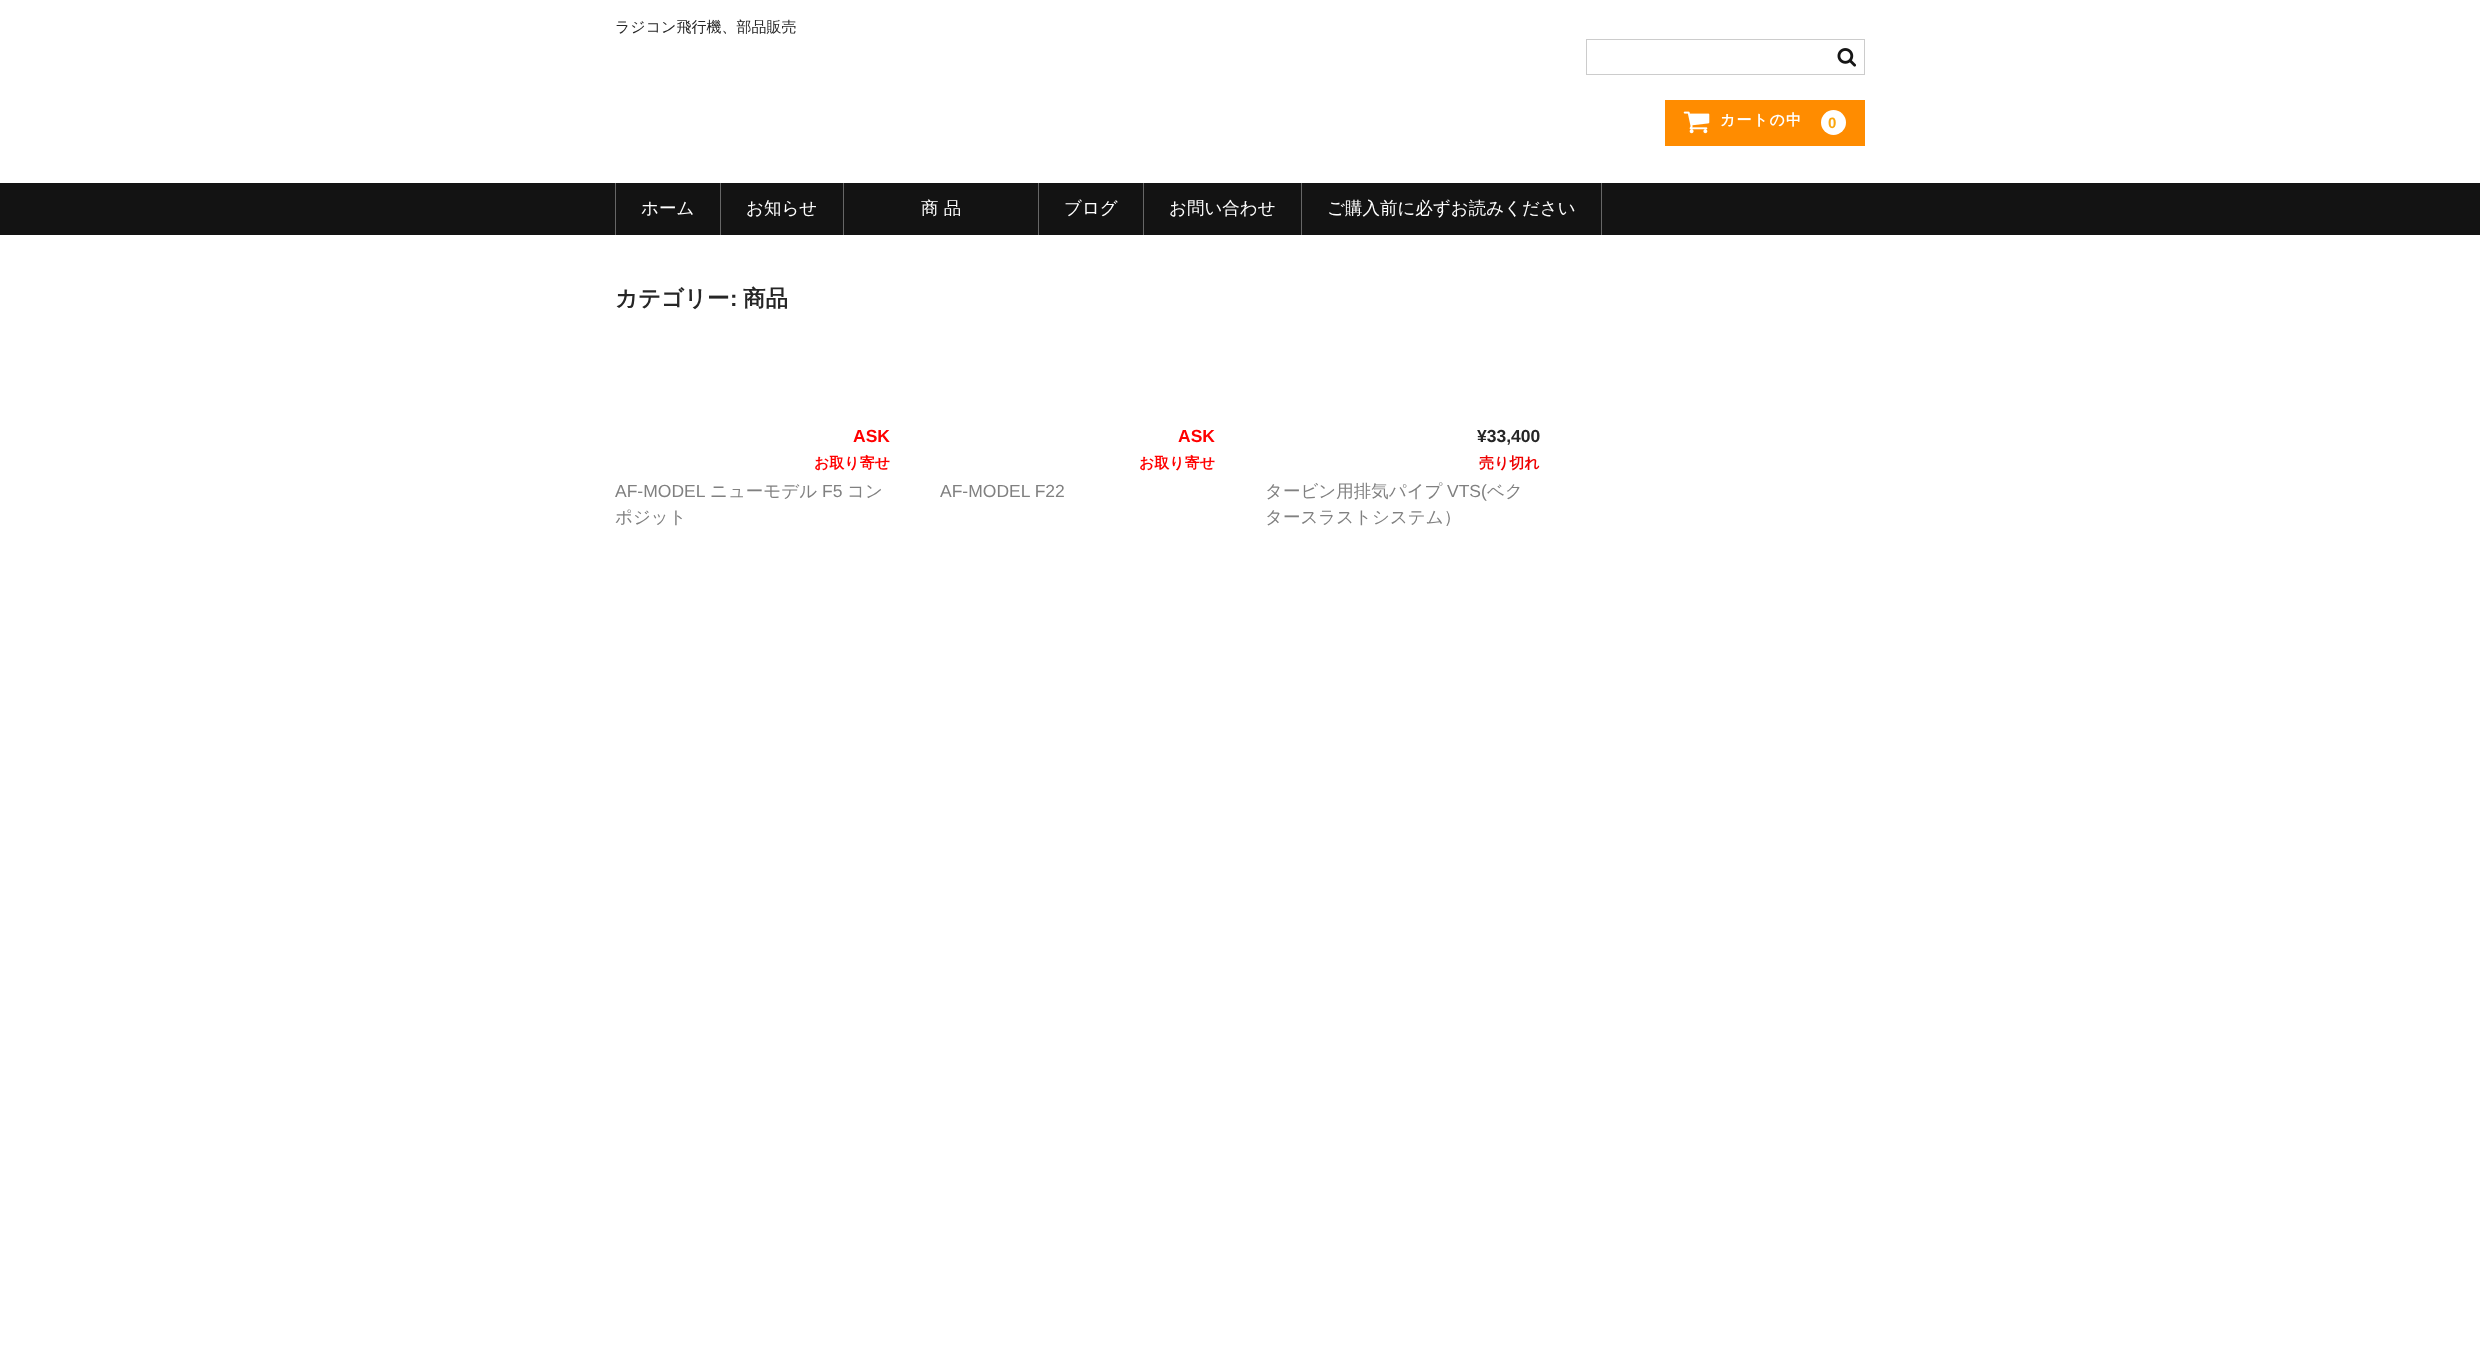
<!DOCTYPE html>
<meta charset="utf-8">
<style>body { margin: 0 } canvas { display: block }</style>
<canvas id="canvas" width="2480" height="1356"></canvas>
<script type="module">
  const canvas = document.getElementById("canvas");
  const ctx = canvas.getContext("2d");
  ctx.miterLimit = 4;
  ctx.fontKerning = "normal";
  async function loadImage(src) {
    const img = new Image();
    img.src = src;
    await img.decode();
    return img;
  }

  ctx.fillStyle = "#ffffff";
  ctx.fillRect(0, 0, 2480, 1356);
  ctx.font = "500 15px WenQuanYi Zen Hei";
  ctx.fillStyle = "#262626";
  ctx.fillText("ラジコン飛行機、部品販売", 615, 32);
  ctx.strokeStyle = "#cccccc";
  ctx.strokeRect(1586.5, 39.5, 278, 35);
  ctx.drawImage(await loadImage("img1.png"), 1837, 48, 19, 19);
  ctx.fillStyle = "#ff8c00";
  ctx.fillRect(1665, 100, 200, 46);
  ctx.drawImage(await loadImage("img2.png"), 1683, 111, 27, 23);
  ctx.letterSpacing = "1.25px";
  ctx.font = "bold 15px WenQuanYi Zen Hei";
  ctx.fillStyle = "#ffffff";
  ctx.fillText("カートの中", 1720, 125);
  ctx.beginPath();
  ctx.arc(1833.5, 122.5, 12.5, 0, Math.PI * 2);
  ctx.fill();
  ctx.font = "bold 15px Liberation Sans";
  ctx.fillStyle = "#fba60d";
  ctx.fillText("0", 1828, 128);
  ctx.fillStyle = "#131313";
  ctx.fillRect(0, 183, 2480, 52);
  ctx.fillStyle = "#666666";
  ctx.fillRect(720, 183, 1, 52);
  ctx.fillRect(615, 183, 1, 52);
  ctx.letterSpacing = "0px";
  ctx.font = "500 17.5px WenQuanYi Zen Hei";
  ctx.fillStyle = "#ffffff";
  ctx.fillText("ホーム", 641, 214);
  ctx.fillStyle = "#666666";
  ctx.fillRect(843, 183, 1, 52);
  ctx.fillStyle = "#ffffff";
  ctx.fillText("お知らせ", 746, 214);
  ctx.fillStyle = "#666666";
  ctx.fillRect(1038, 183, 1, 52);
  ctx.fillStyle = "#ffffff";
  ctx.fillText("商 品", 921, 214);
  ctx.fillStyle = "#666666";
  ctx.fillRect(1143, 183, 1, 52);
  ctx.fillStyle = "#ffffff";
  ctx.fillText("ブログ", 1064, 214);
  ctx.fillStyle = "#666666";
  ctx.fillRect(1301, 183, 1, 52);
  ctx.fillStyle = "#ffffff";
  ctx.fillText("お問い合わせ", 1169, 214);
  ctx.fillStyle = "#666666";
  ctx.fillRect(1601, 183, 1, 52);
  ctx.fillStyle = "#ffffff";
  ctx.fillText("ご購入前に必ずお読みください", 1327, 214);
  ctx.font = "bold 22.5px WenQuanYi Zen Hei";
  ctx.fillStyle = "#262626";
  ctx.fillText("カテゴリー", 615, 306);
  ctx.font = "bold 22.5px Liberation Sans";
  ctx.fillText(":", 730, 306);
  ctx.font = "bold 22.5px WenQuanYi Zen Hei";
  ctx.fillText("商品", 743, 306);
  ctx.font = "bold 17.5px Liberation Sans";
  ctx.fillStyle = "#ff0000";
  ctx.fillText("ASK", 853, 442);
  ctx.font = "bold 15px WenQuanYi Zen Hei";
  ctx.fillText("お取り寄せ", 814, 468);
  ctx.font = "17.5px Liberation Sans";
  ctx.fillStyle = "#808080";
  ctx.fillText("AF-MODEL", 615, 497);
  ctx.font = "500 17.5px WenQuanYi Zen Hei";
  ctx.fillText("ニューモデル", 710, 497);
  ctx.font = "17.5px Liberation Sans";
  ctx.fillText("F5", 822, 497);
  ctx.font = "500 17.5px WenQuanYi Zen Hei";
  ctx.fillText("コン", 847, 497);
  ctx.fillText("ポジット", 615, 523);
  ctx.font = "bold 17.5px Liberation Sans";
  ctx.fillStyle = "#ff0000";
  ctx.fillText("ASK", 1178, 442);
  ctx.font = "bold 15px WenQuanYi Zen Hei";
  ctx.fillText("お取り寄せ", 1139, 468);
  ctx.font = "17.5px Liberation Sans";
  ctx.fillStyle = "#808080";
  ctx.fillText("AF-MODEL F22", 940, 497);
  ctx.font = "bold 17.5px Liberation Sans";
  ctx.fillStyle = "#262626";
  ctx.fillText("¥33,400", 1477, 442);
  ctx.font = "bold 15px WenQuanYi Zen Hei";
  ctx.fillStyle = "#ee0000";
  ctx.fillText("売り切れ", 1479, 468);
  ctx.font = "500 17.5px WenQuanYi Zen Hei";
  ctx.fillStyle = "#808080";
  ctx.fillText("タービン用排気パイプ", 1265, 497);
  ctx.font = "17.5px Liberation Sans";
  ctx.fillText("VTS(", 1447, 497);
  ctx.font = "500 17.5px WenQuanYi Zen Hei";
  ctx.fillText("ベク", 1487, 497);
  ctx.fillText("タースラストシステム）", 1265, 523);
</script>
